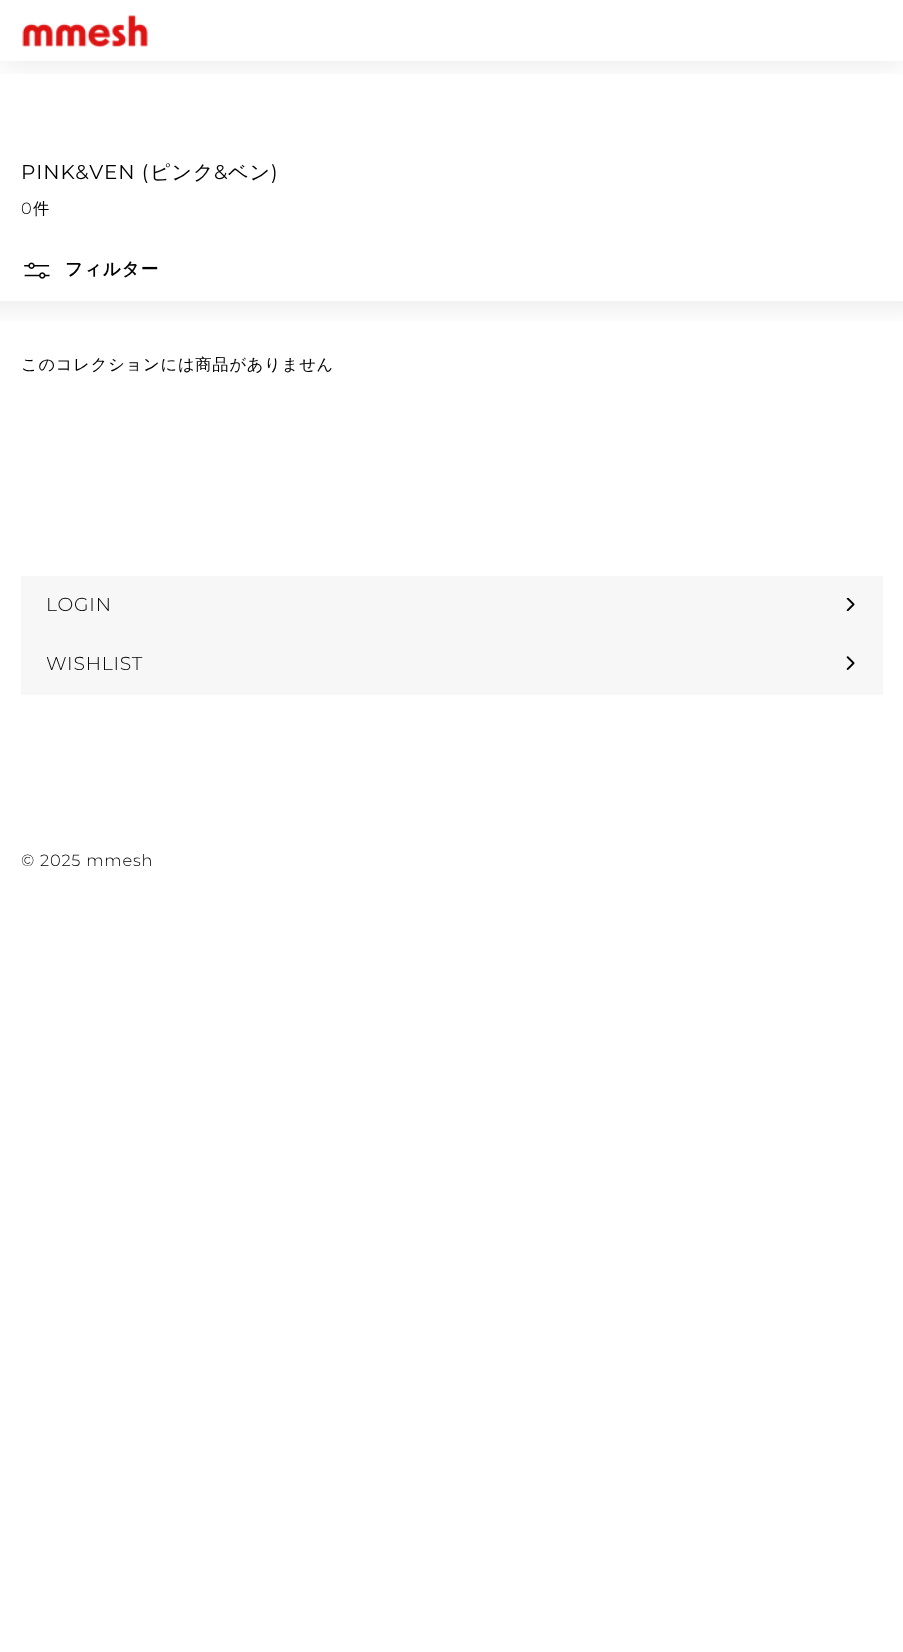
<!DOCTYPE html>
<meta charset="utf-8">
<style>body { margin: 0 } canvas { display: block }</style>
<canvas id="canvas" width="903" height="1652"></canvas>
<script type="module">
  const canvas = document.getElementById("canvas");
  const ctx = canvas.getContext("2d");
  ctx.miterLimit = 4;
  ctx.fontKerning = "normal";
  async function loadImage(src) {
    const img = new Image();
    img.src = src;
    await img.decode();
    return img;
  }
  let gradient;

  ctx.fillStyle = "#ffffff";
  ctx.fillRect(0, 0, 903, 1652);
  ctx.fillStyle = "#f7f7f7";
  ctx.fillRect(21, 576, 862, 119);
  ctx.save();
  ctx.beginPath();
  ctx.rect(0, 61, 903, 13);
  ctx.clip();
  ctx.fillStyle = "rgba(0, 0, 0, 0.1)";
  ctx.filter = "blur(15.5px)";
  ctx.beginPath();
  ctx.rect(0, 0, 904, 61);
  ctx.fill();
  ctx.filter = "none";
  ctx.restore();
  ctx.drawImage(await loadImage("img1.png"), 22, 15, 126, 33);
  ctx.letterSpacing = "1px";
  ctx.font = "20px Montserrat";
  ctx.fillStyle = "#000000";
  ctx.fillText("PINK&VEN (", 21, 179);
  ctx.font = "500 20px WenQuanYi Zen Hei";
  ctx.fillText("ピンク", 150, 179);
  ctx.font = "20px Montserrat";
  ctx.fillText("&", 214, 179);
  ctx.font = "500 20px WenQuanYi Zen Hei";
  ctx.fillText("ベン", 228, 179);
  ctx.font = "20px Montserrat";
  ctx.fillText(")", 271, 179);
  ctx.letterSpacing = "0.8px";
  ctx.font = "300 16.25px Montserrat";
  ctx.fillText("0", 21, 214);
  ctx.font = "500 16.25px WenQuanYi Zen Hei";
  ctx.fillText("件", 33, 214);
  ctx.drawImage(await loadImage("img2.png"), 24, 262, 26, 17);
  ctx.letterSpacing = "1px";
  ctx.font = "bold 17.5px WenQuanYi Zen Hei";
  ctx.fillText("フィルター", 65, 275);
  gradient = ctx.createLinearGradient(452, 301, 452, 326);
  gradient.addColorStop(0, "#f2f2f2");
  gradient.addColorStop(1, "#ffffff");
  ctx.fillStyle = gradient;
  ctx.fillRect(0, 301, 903, 20);
  ctx.letterSpacing = "0.8px";
  ctx.font = "500 16.25px WenQuanYi Zen Hei";
  ctx.fillStyle = "#000000";
  ctx.fillText("このコレクションには商品がありません", 21, 370);
  ctx.font = "300 18.75px Montserrat";
  ctx.fillText("LOGIN", 46, 611);
  ctx.drawImage(await loadImage("img3.png"), 846, 598, 9, 13);
  ctx.fillText("WISHLIST", 46, 670);
  ctx.drawImage(await loadImage("img4.png"), 846, 656, 9, 14);
  ctx.font = "300 16.25px Montserrat";
  ctx.fillText("© 2025 mmesh", 21, 866);
</script>
